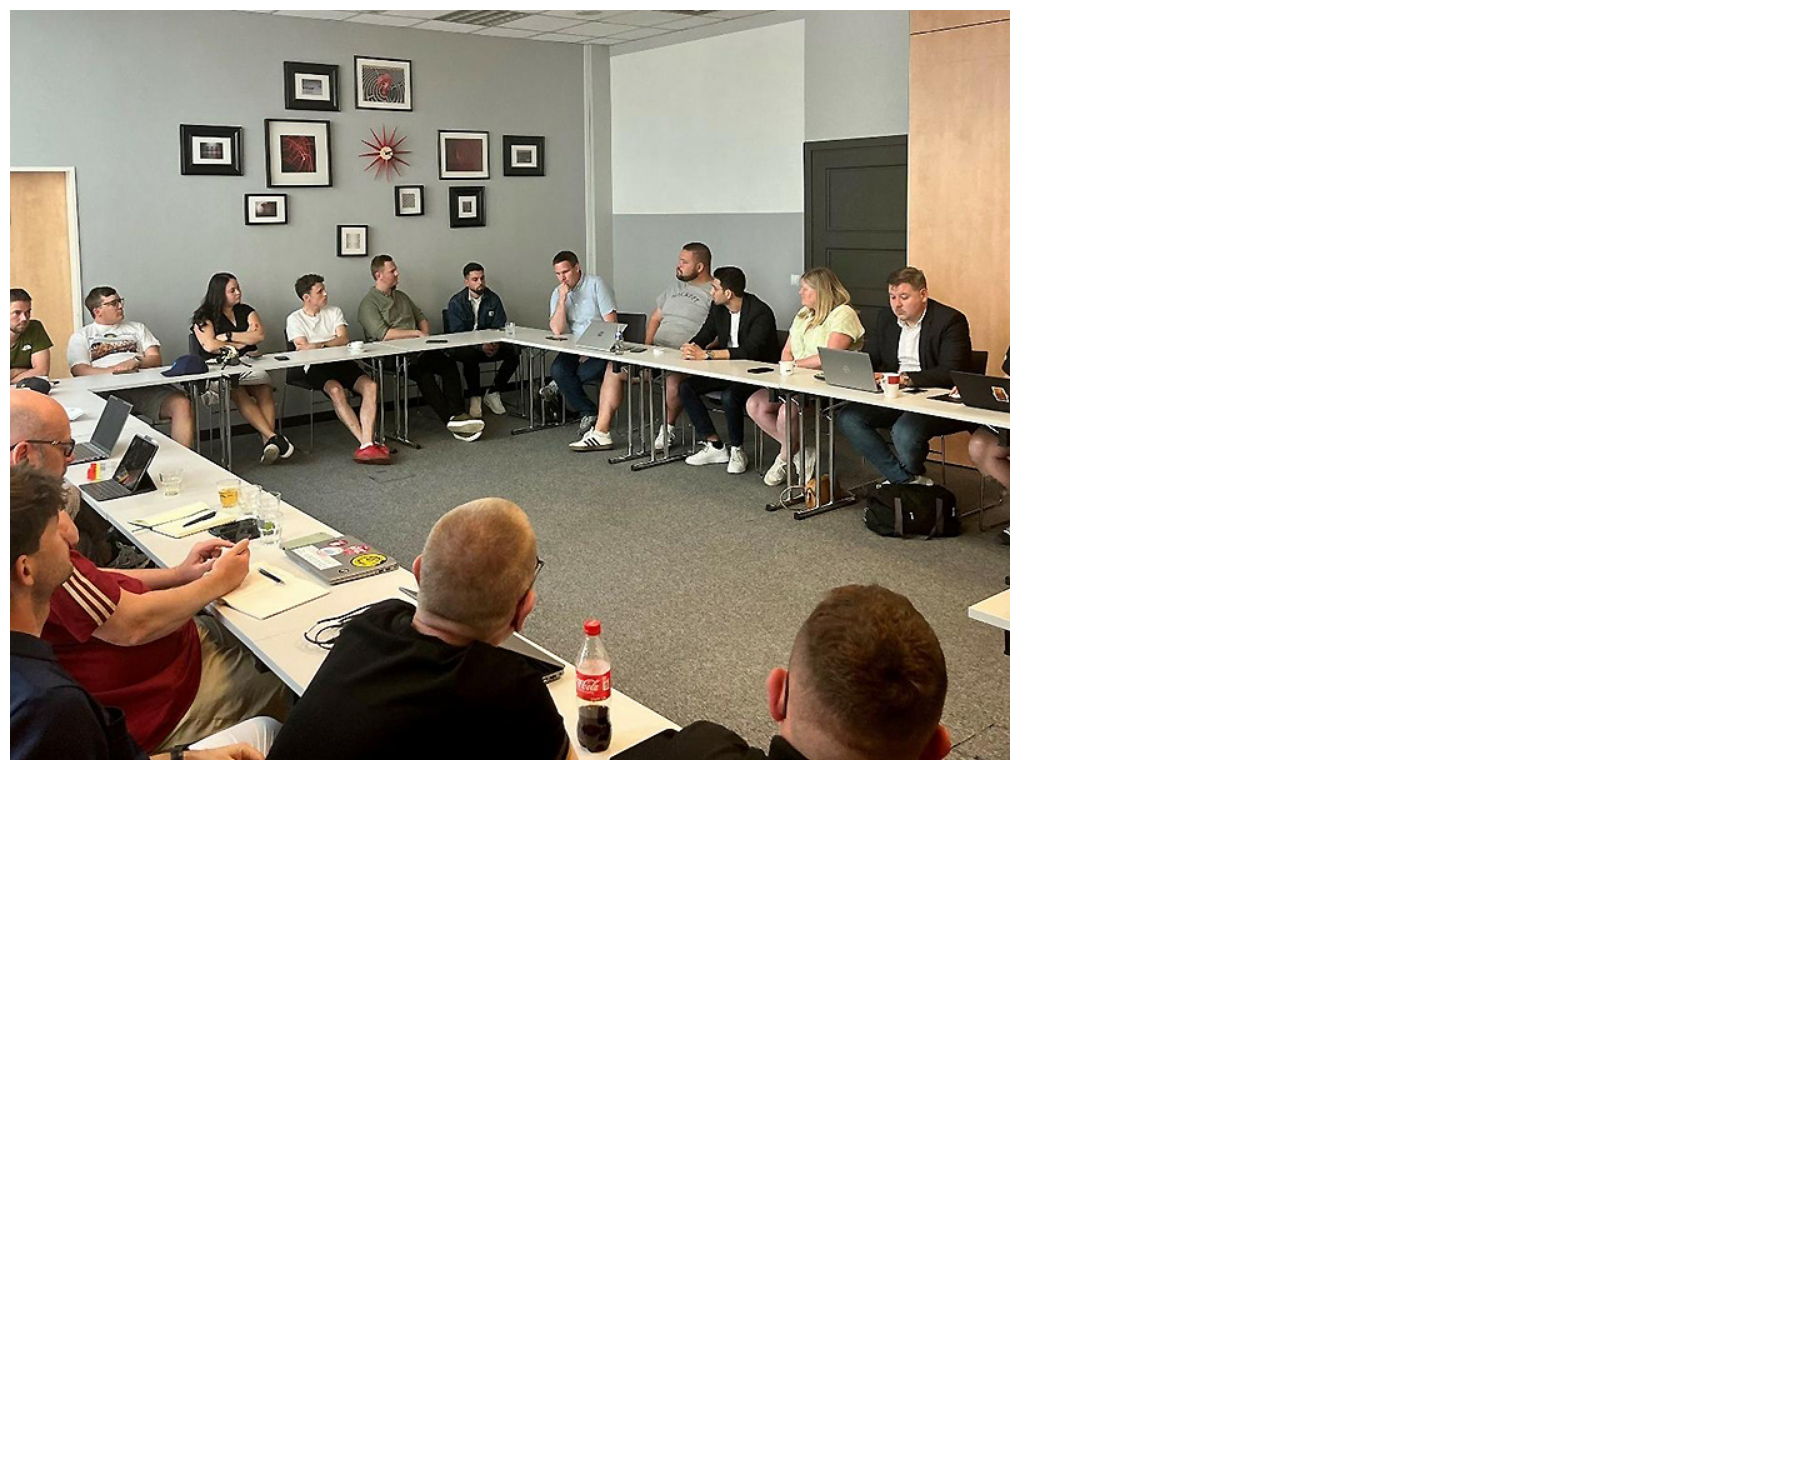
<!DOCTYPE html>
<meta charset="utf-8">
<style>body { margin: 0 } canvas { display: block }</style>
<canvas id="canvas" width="1804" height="1484"></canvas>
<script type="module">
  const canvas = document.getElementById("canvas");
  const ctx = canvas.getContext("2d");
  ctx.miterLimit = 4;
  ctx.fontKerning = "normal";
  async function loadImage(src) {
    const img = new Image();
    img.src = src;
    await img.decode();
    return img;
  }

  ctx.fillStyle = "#ffffff";
  ctx.fillRect(0, 0, 1804, 1484);
  ctx.drawImage(await loadImage("img1.png"), 10, 10, 1000, 750);
</script>
